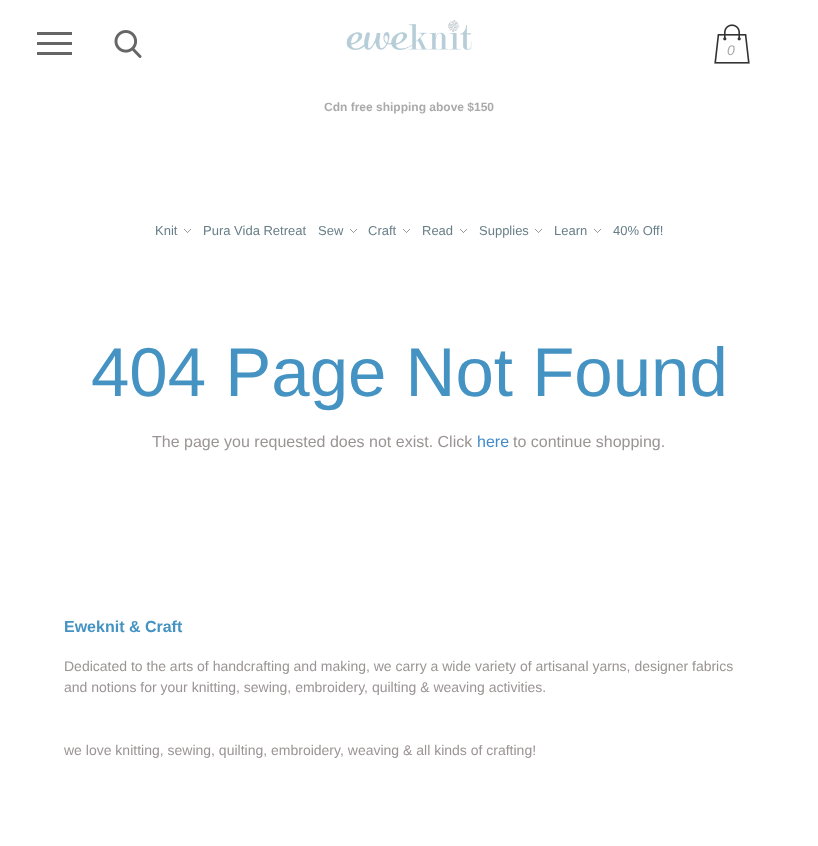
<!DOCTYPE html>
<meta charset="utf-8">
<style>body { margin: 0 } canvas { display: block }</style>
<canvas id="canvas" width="818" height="846"></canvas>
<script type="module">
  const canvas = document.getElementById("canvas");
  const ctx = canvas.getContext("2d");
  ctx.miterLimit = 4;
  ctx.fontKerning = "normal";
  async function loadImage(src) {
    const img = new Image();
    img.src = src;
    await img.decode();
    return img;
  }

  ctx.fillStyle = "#ffffff";
  ctx.fillRect(0, 0, 818, 846);
  ctx.fillStyle = "#666666";
  ctx.fillRect(37, 42, 35, 3);
  ctx.fillRect(37, 32, 35, 3);
  ctx.fillRect(37, 52, 35, 3);
  ctx.drawImage(await loadImage("img1.png"), 114, 30, 28, 28);
  ctx.drawImage(await loadImage("img2.png"), 346, 20, 126, 30);
  ctx.drawImage(await loadImage("img3.png"), 714, 24, 36, 40);
  ctx.letterSpacing = "1px";
  ctx.font = "italic 14px Liberation Sans";
  ctx.fillStyle = "#aaaaaa";
  ctx.fillText("0", 727, 55);
  ctx.letterSpacing = "0px";
  ctx.font = "bold 12px Liberation Sans";
  ctx.fillText("Cdn free shipping above $150", 324, 111);
  ctx.font = "13px Liberation Sans";
  ctx.fillStyle = "#677e87";
  ctx.fillText("Knit", 155, 235);
  ctx.drawImage(await loadImage("img4.png"), 184, 229, 7, 4);
  ctx.fillText("Pura Vida Retreat", 203, 235);
  ctx.fillText("Sew", 318, 235);
  ctx.drawImage(await loadImage("img4.png"), 350, 229, 7, 4);
  ctx.fillText("Craft", 368, 235);
  ctx.drawImage(await loadImage("img4.png"), 403, 229, 7, 4);
  ctx.fillText("Read", 422, 235);
  ctx.drawImage(await loadImage("img4.png"), 460, 229, 7, 4);
  ctx.fillText("Supplies", 479, 235);
  ctx.drawImage(await loadImage("img4.png"), 535, 229, 7, 4);
  ctx.fillText("Learn", 554, 235);
  ctx.drawImage(await loadImage("img4.png"), 594, 229, 7, 4);
  ctx.fillText("40% Off!", 613, 235);
  ctx.font = "69px Liberation Sans";
  ctx.fillStyle = "#4593c3";
  ctx.fillText("404 Page Not Found", 91, 396);
  ctx.font = "16px Liberation Sans";
  ctx.fillStyle = "#9b9494";
  ctx.fillText("The page you requested does not exist. Click", 152, 447);
  ctx.fillStyle = "#428bca";
  ctx.fillText("here", 477, 447);
  ctx.fillStyle = "#9b9494";
  ctx.fillText("to continue shopping.", 513, 447);
  ctx.font = "bold 16px Liberation Sans";
  ctx.fillStyle = "#4593c3";
  ctx.fillText("Eweknit & Craft", 64, 632);
  ctx.font = "14px Liberation Sans";
  ctx.fillStyle = "#9b9494";
  ctx.fillText("Dedicated to the arts of handcrafting and making, we carry a wide variety of artisanal yarns, designer fabrics", 64, 671);
  ctx.fillText("and notions for your knitting, sewing, embroidery, quilting & weaving activities.", 64, 692);
  ctx.fillText("we love knitting, sewing, quilting, embroidery, weaving & all kinds of crafting!", 64, 755);
</script>
